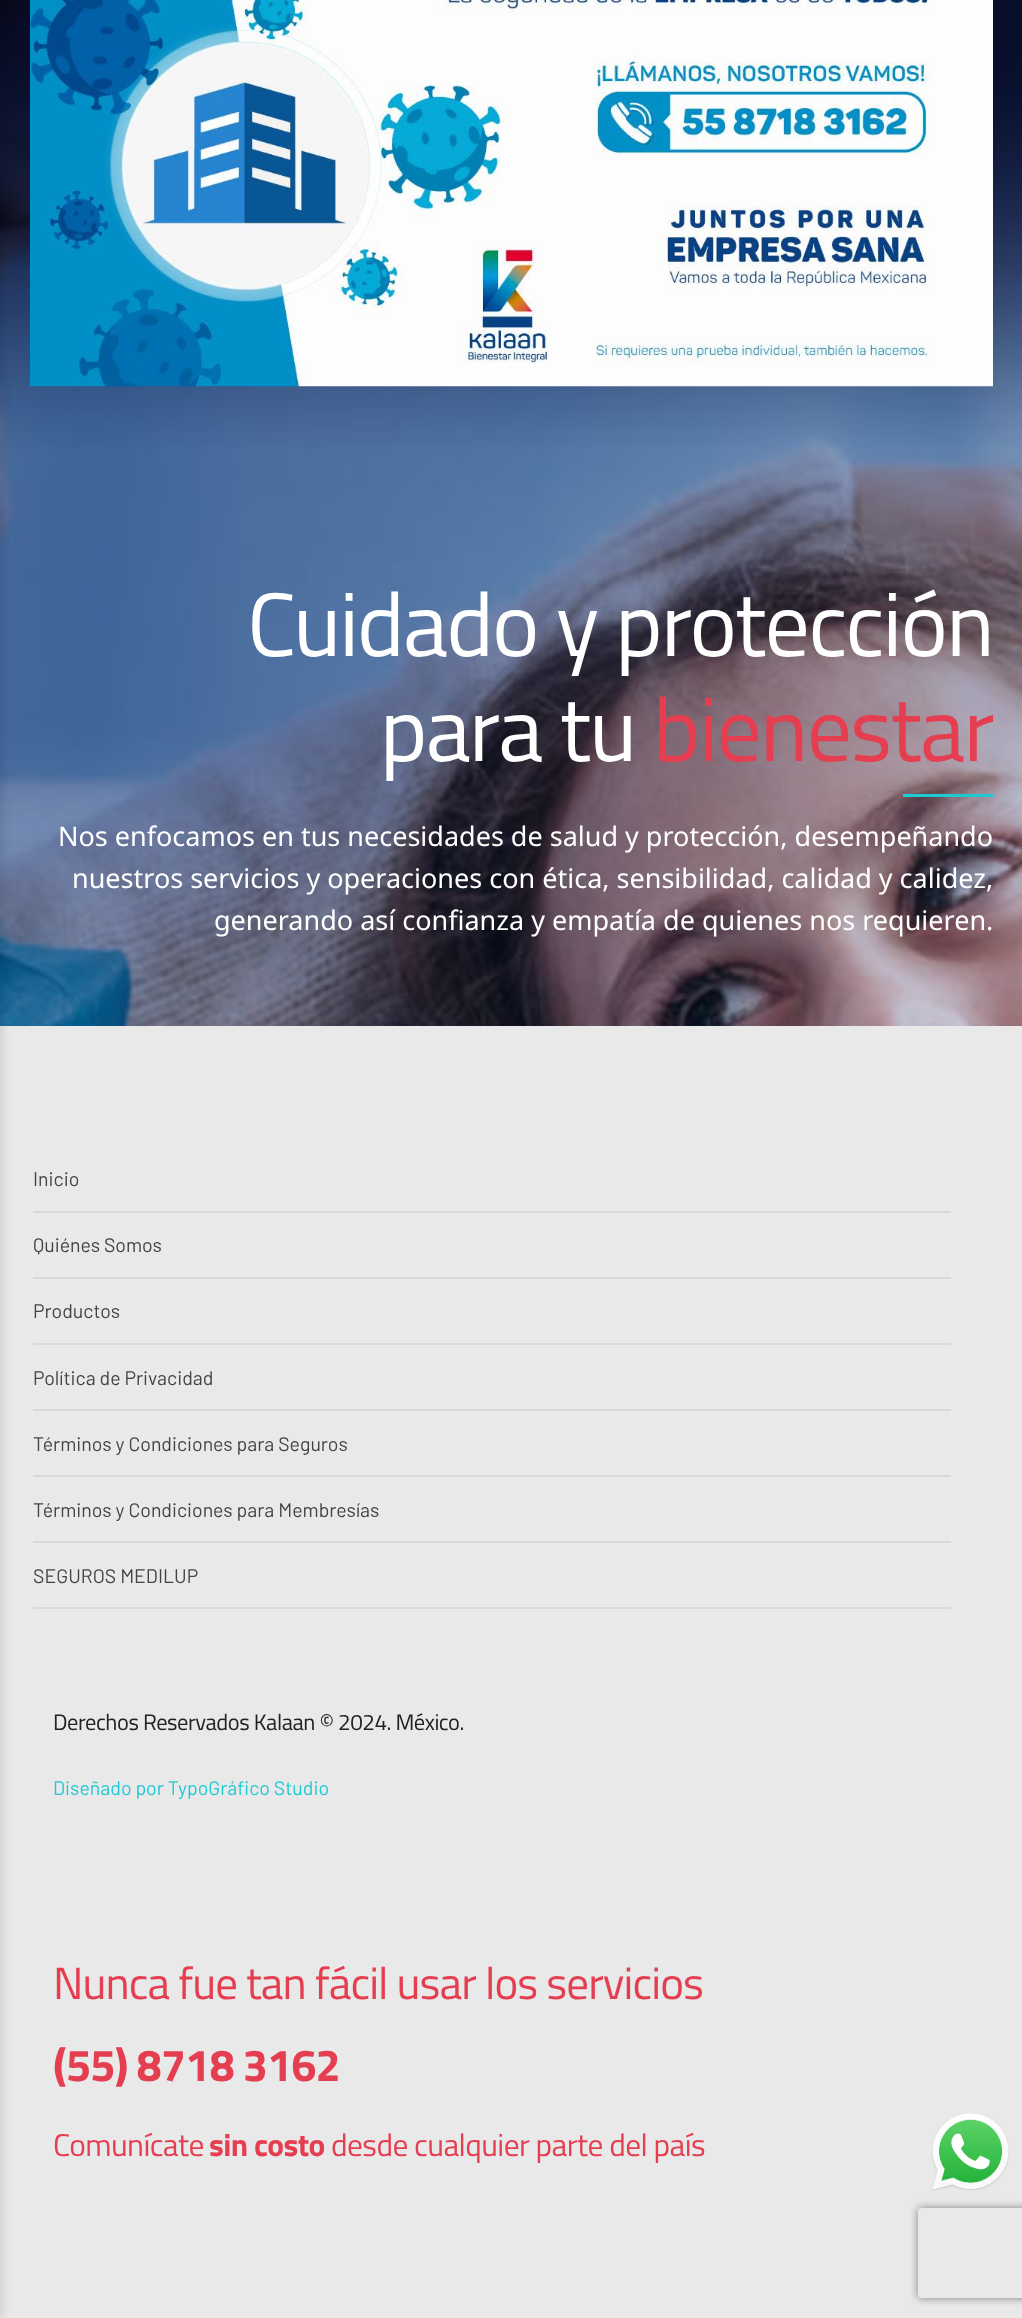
<!DOCTYPE html>
<meta charset="utf-8">
<style>body { margin: 0 } canvas { display: block }</style>
<canvas id="canvas" width="1022" height="2318"></canvas>
<script type="module">
  const canvas = document.getElementById("canvas");
  const ctx = canvas.getContext("2d");
  ctx.miterLimit = 4;
  ctx.fontKerning = "normal";
  async function loadImage(src) {
    const img = new Image();
    img.src = src;
    await img.decode();
    return img;
  }

  ctx.fillStyle = "#ffffff";
  ctx.fillRect(0, 0, 1022, 2318);
  ctx.drawImage(await loadImage("img1.png"), 0, 0, 1022, 1026);
  ctx.fillStyle = "#e9e9ea";
  ctx.fillRect(0, 1026, 1022, 1292);
  ctx.fillStyle = "rgba(0, 0, 0, 0.1)";
  ctx.filter = "blur(4px)";
  ctx.beginPath();
  ctx.rect(-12, 0, 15, 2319);
  ctx.fill();
  ctx.filter = "none";
  ctx.drawImage(await loadImage("img2.png"), 30, 0, 963, 387);
  ctx.letterSpacing = "-1.8px";
  ctx.font = "90px Titillium Web";
  ctx.fillStyle = "#ffffff";
  ctx.fillText("Cuidado y protección", 247, 656);
  ctx.fillText("para tu", 380, 761);
  ctx.fillStyle = "#e53e51";
  ctx.fillText("bienestar", 653, 761);
  ctx.fillStyle = "#1dcad3";
  ctx.fillRect(903, 794, 90, 3);
  ctx.letterSpacing = "0px";
  ctx.font = "27px Noto Sans";
  ctx.fillStyle = "#ffffff";
  ctx.fillText("Nos enfocamos en tus necesidades de salud y protección, desempeñando", 58, 846);
  ctx.fillText("nuestros servicios y operaciones con ética, sensibilidad, calidad y calidez,", 72, 888);
  ctx.fillText("generando así confianza y empatía de quienes nos requieren.", 214, 930);
  ctx.fillStyle = "#d9d9da";
  ctx.fillRect(33, 1211, 918, 2);
  ctx.font = "19.5px Barlow";
  ctx.fillStyle = "#444444";
  ctx.fillText("Inicio", 33, 1186);
  ctx.fillStyle = "#d9d9da";
  ctx.fillRect(33, 1277, 918, 2);
  ctx.fillStyle = "#444444";
  ctx.fillText("Quiénes Somos", 33, 1252);
  ctx.fillStyle = "#d9d9da";
  ctx.fillRect(33, 1343, 918, 2);
  ctx.fillStyle = "#444444";
  ctx.fillText("Productos", 33, 1318);
  ctx.fillStyle = "#d9d9da";
  ctx.fillRect(33, 1409, 918, 2);
  ctx.fillStyle = "#444444";
  ctx.fillText("Política de Privacidad", 33, 1385);
  ctx.fillStyle = "#d9d9da";
  ctx.fillRect(33, 1475, 918, 2);
  ctx.fillStyle = "#444444";
  ctx.fillText("Términos y Condiciones para Seguros", 33, 1451);
  ctx.fillStyle = "#d9d9da";
  ctx.fillRect(33, 1541, 918, 2);
  ctx.fillStyle = "#444444";
  ctx.fillText("Términos y Condiciones para Membresías", 33, 1517);
  ctx.fillStyle = "#d9d9da";
  ctx.fillRect(33, 1607, 918, 2);
  ctx.fillStyle = "#444444";
  ctx.fillText("SEGUROS MEDILUP", 33, 1583);
  ctx.letterSpacing = "-0.45px";
  ctx.font = "22.5px Titillium Web";
  ctx.fillStyle = "#222222";
  ctx.fillText("Derechos Reservados Kalaan © 2024. México.", 53, 1730);
  ctx.letterSpacing = "0px";
  ctx.font = "19.5px Barlow";
  ctx.fillStyle = "#1dcad3";
  ctx.fillText("Diseñado por TypoGráfico Studio", 53, 1795);
  ctx.letterSpacing = "-0.9px";
  ctx.font = "45px Titillium Web";
  ctx.fillStyle = "#e53e51";
  ctx.fillText("Nunca fue tan fácil usar los servicios", 53, 1999);
  ctx.font = "bold 45px Titillium Web";
  ctx.fillText("(55) 8718 3162", 53, 2081);
  ctx.letterSpacing = "-0.6px";
  ctx.font = "31.5px Titillium Web";
  ctx.fillText("Comunícate", 53, 2156);
  ctx.font = "bold 31.5px Titillium Web";
  ctx.fillText("sin costo", 209, 2156);
  ctx.font = "31.5px Titillium Web";
  ctx.fillText("desde cualquier parte del país", 331, 2156);
  ctx.drawImage(await loadImage("img3.png"), 932, 2113, 77, 78);
  ctx.save();
  ctx.beginPath();
  ctx.moveTo(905, 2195);
  ctx.lineTo(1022, 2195);
  ctx.lineTo(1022, 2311);
  ctx.lineTo(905, 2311);
  ctx.closePath();
  ctx.moveTo(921, 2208);
  ctx.lineTo(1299, 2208);
  ctx.bezierCurveTo(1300.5, 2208, 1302, 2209.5, 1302, 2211);
  ctx.lineTo(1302, 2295);
  ctx.bezierCurveTo(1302, 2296.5, 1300.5, 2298, 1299, 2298);
  ctx.lineTo(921, 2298);
  ctx.bezierCurveTo(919.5, 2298, 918, 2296.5, 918, 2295);
  ctx.lineTo(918, 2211);
  ctx.bezierCurveTo(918, 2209.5, 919.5, 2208, 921, 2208);
  ctx.closePath();
  ctx.clip("evenodd");
  ctx.fillStyle = "#808080";
  ctx.filter = "blur(4px)";
  ctx.beginPath();
  ctx.roundRect(918, 2208, 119, 90, 3);
  ctx.fill();
  ctx.filter = "none";
  ctx.restore();
</script>
